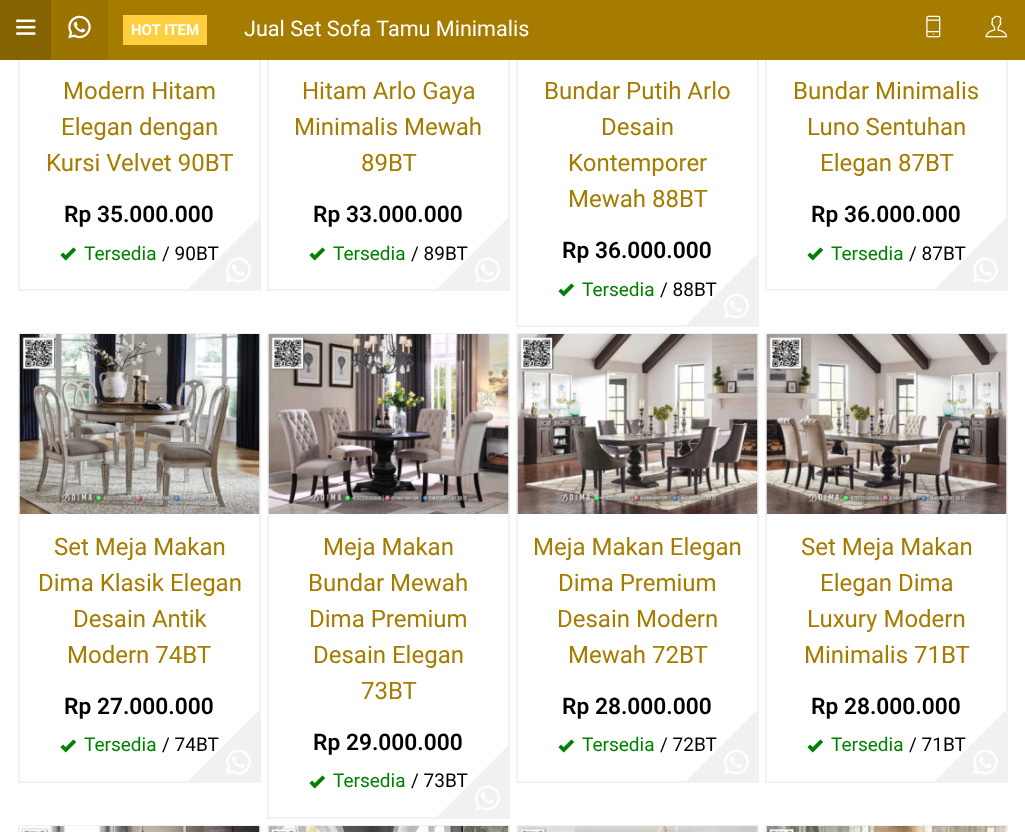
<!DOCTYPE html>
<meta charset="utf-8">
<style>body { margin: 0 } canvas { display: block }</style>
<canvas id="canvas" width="1025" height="832"></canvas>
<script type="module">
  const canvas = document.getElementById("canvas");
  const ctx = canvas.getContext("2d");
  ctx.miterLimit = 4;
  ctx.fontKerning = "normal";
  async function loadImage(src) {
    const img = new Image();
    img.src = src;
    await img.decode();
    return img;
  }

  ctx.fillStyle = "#ffffff";
  ctx.fillRect(0, 0, 1025, 832);
  ctx.strokeStyle = "#f1f1f1";
  ctx.lineWidth = 2;
  ctx.strokeRect(19, -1, 241, 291);
  ctx.strokeRect(268, -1, 241, 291);
  ctx.strokeRect(517, -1, 241, 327);
  ctx.strokeRect(766, -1, 241, 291);
  ctx.fillStyle = "#a67c00";
  ctx.fillRect(108, 0, 917, 60);
  ctx.fillStyle = "#856300";
  ctx.fillRect(0, 0, 51, 60);
  ctx.drawImage(await loadImage("img1.png"), 16, 19, 20, 16);
  ctx.fillStyle = "#9a7300";
  ctx.fillRect(51, 0, 57, 60);
  ctx.drawImage(await loadImage("img2.png"), 68, 15, 23, 24);
  ctx.fillStyle = "#ffcf40";
  ctx.fillRect(123, 15, 84, 30);
  ctx.font = "bold 15px Roboto";
  ctx.fillStyle = "#ffffff";
  ctx.fillText("HOT ITEM", 131, 35);
  ctx.font = "21.6px Roboto";
  ctx.fillText("Jual Set Sofa Tamu Minimalis", 244, 36);
  ctx.drawImage(await loadImage("img3.png"), 926, 15, 15, 23);
  ctx.drawImage(await loadImage("img4.png"), 985, 15, 23, 23);
  ctx.font = "24px Roboto";
  ctx.fillStyle = "#a67c00";
  ctx.fillText("Modern Hitam", 63, 99);
  ctx.fillText("Elegan dengan", 61, 135);
  ctx.fillText("Kursi Velvet 90BT", 46, 171);
  ctx.font = "600 22.75px Roboto";
  ctx.fillStyle = "#000000";
  ctx.fillText("Rp 35.000.000", 64, 222);
  ctx.font = "19px Roboto";
  ctx.fillText("/ 90BT", 162, 260);
  ctx.save();
  ctx.beginPath();
  ctx.rect(20, 0, 240, 290);
  ctx.clip();
  ctx.fillStyle = "#f1f1f1";
  ctx.beginPath();
  ctx.moveTo(261, 291);
  ctx.lineTo(186, 291);
  ctx.lineTo(261, 216);
  ctx.closePath();
  ctx.fill();
  ctx.restore();
  ctx.drawImage(await loadImage("img5.png"), 226, 257, 25, 26);
  ctx.drawImage(await loadImage("img6.png"), 60, 247, 16, 14);
  ctx.fillStyle = "#008000";
  ctx.fillText("Tersedia", 84, 260);
  ctx.font = "24px Roboto";
  ctx.fillStyle = "#a67c00";
  ctx.fillText("Hitam Arlo Gaya", 302, 99);
  ctx.fillText("Minimalis Mewah", 294, 135);
  ctx.fillText("89BT", 361, 171);
  ctx.font = "600 22.75px Roboto";
  ctx.fillStyle = "#000000";
  ctx.fillText("Rp 33.000.000", 313, 222);
  ctx.font = "19px Roboto";
  ctx.fillText("/ 89BT", 411, 260);
  ctx.save();
  ctx.beginPath();
  ctx.rect(269, 0, 240, 290);
  ctx.clip();
  ctx.fillStyle = "#f1f1f1";
  ctx.beginPath();
  ctx.moveTo(510, 291);
  ctx.lineTo(435, 291);
  ctx.lineTo(510, 216);
  ctx.closePath();
  ctx.fill();
  ctx.restore();
  ctx.drawImage(await loadImage("img5.png"), 475, 257, 25, 26);
  ctx.drawImage(await loadImage("img6.png"), 309, 247, 16, 14);
  ctx.fillStyle = "#008000";
  ctx.fillText("Tersedia", 333, 260);
  ctx.font = "24px Roboto";
  ctx.fillStyle = "#a67c00";
  ctx.fillText("Bundar Putih Arlo", 544, 99);
  ctx.fillText("Desain", 601, 135);
  ctx.fillText("Kontemporer", 568, 171);
  ctx.fillText("Mewah 88BT", 568, 207);
  ctx.font = "600 22.75px Roboto";
  ctx.fillStyle = "#000000";
  ctx.fillText("Rp 36.000.000", 562, 258);
  ctx.font = "19px Roboto";
  ctx.fillText("/ 88BT", 660, 296);
  ctx.save();
  ctx.beginPath();
  ctx.rect(518, 0, 240, 326);
  ctx.clip();
  ctx.fillStyle = "#f1f1f1";
  ctx.beginPath();
  ctx.moveTo(759, 327);
  ctx.lineTo(684, 327);
  ctx.lineTo(759, 252);
  ctx.closePath();
  ctx.fill();
  ctx.restore();
  ctx.drawImage(await loadImage("img5.png"), 724, 293, 25, 26);
  ctx.drawImage(await loadImage("img6.png"), 558, 283, 16, 14);
  ctx.fillStyle = "#008000";
  ctx.fillText("Tersedia", 582, 296);
  ctx.font = "24px Roboto";
  ctx.fillStyle = "#a67c00";
  ctx.fillText("Bundar Minimalis", 793, 99);
  ctx.fillText("Luno Sentuhan", 807, 135);
  ctx.fillText("Elegan 87BT", 820, 171);
  ctx.font = "600 22.75px Roboto";
  ctx.fillStyle = "#000000";
  ctx.fillText("Rp 36.000.000", 811, 222);
  ctx.font = "19px Roboto";
  ctx.fillText("/ 87BT", 909, 260);
  ctx.save();
  ctx.beginPath();
  ctx.rect(767, 0, 240, 290);
  ctx.clip();
  ctx.fillStyle = "#f1f1f1";
  ctx.beginPath();
  ctx.moveTo(1008, 291);
  ctx.lineTo(933, 291);
  ctx.lineTo(1008, 216);
  ctx.closePath();
  ctx.fill();
  ctx.restore();
  ctx.drawImage(await loadImage("img5.png"), 973, 257, 25, 26);
  ctx.drawImage(await loadImage("img6.png"), 807, 247, 16, 14);
  ctx.fillStyle = "#008000";
  ctx.fillText("Tersedia", 831, 260);
  ctx.strokeRect(19, 334, 241, 448);
  ctx.drawImage(await loadImage("img7.png"), 19, 334, 241, 180);
  ctx.font = "24px Roboto";
  ctx.fillStyle = "#a67c00";
  ctx.fillText("Set Meja Makan", 54, 555);
  ctx.fillText("Dima Klasik Elegan", 38, 591);
  ctx.fillText("Desain Antik", 73, 627);
  ctx.fillText("Modern 74BT", 67, 663);
  ctx.font = "600 22.75px Roboto";
  ctx.fillStyle = "#000000";
  ctx.fillText("Rp 27.000.000", 64, 714);
  ctx.font = "19px Roboto";
  ctx.fillText("/ 74BT", 162, 751);
  ctx.save();
  ctx.beginPath();
  ctx.rect(20, 335, 240, 447);
  ctx.clip();
  ctx.fillStyle = "#f1f1f1";
  ctx.beginPath();
  ctx.moveTo(261, 783);
  ctx.lineTo(186, 783);
  ctx.lineTo(261, 708);
  ctx.closePath();
  ctx.fill();
  ctx.restore();
  ctx.drawImage(await loadImage("img5.png"), 226, 749, 25, 26);
  ctx.drawImage(await loadImage("img6.png"), 60, 739, 16, 14);
  ctx.fillStyle = "#008000";
  ctx.fillText("Tersedia", 84, 751);
  ctx.strokeRect(268, 334, 241, 484);
  ctx.drawImage(await loadImage("img8.png"), 268, 334, 241, 180);
  ctx.font = "24px Roboto";
  ctx.fillStyle = "#a67c00";
  ctx.fillText("Meja Makan", 323, 555);
  ctx.fillText("Bundar Mewah", 308, 591);
  ctx.fillText("Dima Premium", 309, 627);
  ctx.fillText("Desain Elegan", 313, 663);
  ctx.fillText("73BT", 361, 699);
  ctx.font = "600 22.75px Roboto";
  ctx.fillStyle = "#000000";
  ctx.fillText("Rp 29.000.000", 313, 750);
  ctx.font = "19px Roboto";
  ctx.fillText("/ 73BT", 411, 787);
  ctx.save();
  ctx.beginPath();
  ctx.rect(269, 335, 240, 483);
  ctx.clip();
  ctx.fillStyle = "#f1f1f1";
  ctx.beginPath();
  ctx.moveTo(510, 819);
  ctx.lineTo(435, 819);
  ctx.lineTo(510, 744);
  ctx.closePath();
  ctx.fill();
  ctx.restore();
  ctx.drawImage(await loadImage("img5.png"), 475, 785, 25, 26);
  ctx.drawImage(await loadImage("img6.png"), 309, 775, 16, 14);
  ctx.fillStyle = "#008000";
  ctx.fillText("Tersedia", 333, 787);
  ctx.strokeRect(517, 334, 241, 448);
  ctx.drawImage(await loadImage("img9.png"), 517, 334, 241, 180);
  ctx.font = "24px Roboto";
  ctx.fillStyle = "#a67c00";
  ctx.fillText("Meja Makan Elegan", 533, 555);
  ctx.fillText("Dima Premium", 558, 591);
  ctx.fillText("Desain Modern", 557, 627);
  ctx.fillText("Mewah 72BT", 568, 663);
  ctx.font = "600 22.75px Roboto";
  ctx.fillStyle = "#000000";
  ctx.fillText("Rp 28.000.000", 562, 714);
  ctx.font = "19px Roboto";
  ctx.fillText("/ 72BT", 660, 751);
  ctx.save();
  ctx.beginPath();
  ctx.rect(518, 335, 240, 447);
  ctx.clip();
  ctx.fillStyle = "#f1f1f1";
  ctx.beginPath();
  ctx.moveTo(759, 783);
  ctx.lineTo(684, 783);
  ctx.lineTo(759, 708);
  ctx.closePath();
  ctx.fill();
  ctx.restore();
  ctx.drawImage(await loadImage("img5.png"), 724, 749, 25, 26);
  ctx.drawImage(await loadImage("img6.png"), 558, 739, 16, 14);
  ctx.fillStyle = "#008000";
  ctx.fillText("Tersedia", 582, 751);
  ctx.strokeRect(766, 334, 241, 448);
  ctx.drawImage(await loadImage("img10.png"), 766, 334, 241, 180);
  ctx.font = "24px Roboto";
  ctx.fillStyle = "#a67c00";
  ctx.fillText("Set Meja Makan", 801, 555);
  ctx.fillText("Elegan Dima", 820, 591);
  ctx.fillText("Luxury Modern", 807, 627);
  ctx.fillText("Minimalis 71BT", 804, 663);
  ctx.font = "600 22.75px Roboto";
  ctx.fillStyle = "#000000";
  ctx.fillText("Rp 28.000.000", 811, 714);
  ctx.font = "19px Roboto";
  ctx.fillText("/ 71BT", 909, 751);
  ctx.save();
  ctx.beginPath();
  ctx.rect(767, 335, 240, 447);
  ctx.clip();
  ctx.fillStyle = "#f1f1f1";
  ctx.beginPath();
  ctx.moveTo(1008, 783);
  ctx.lineTo(933, 783);
  ctx.lineTo(1008, 708);
  ctx.closePath();
  ctx.fill();
  ctx.restore();
  ctx.drawImage(await loadImage("img5.png"), 973, 749, 25, 26);
  ctx.drawImage(await loadImage("img6.png"), 807, 739, 16, 14);
  ctx.fillStyle = "#008000";
  ctx.fillText("Tersedia", 831, 751);
  ctx.strokeRect(19, 826, 241, 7);
  ctx.drawImage(await loadImage("img11.png"), 20, 826, 240, 6);
  ctx.strokeRect(268, 826, 241, 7);
  ctx.drawImage(await loadImage("img12.png"), 268, 826, 241, 6);
  ctx.strokeRect(517, 826, 241, 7);
  ctx.drawImage(await loadImage("img13.png"), 517, 826, 241, 6);
  ctx.strokeRect(766, 826, 241, 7);
  ctx.drawImage(await loadImage("img14.png"), 766, 826, 241, 6);
</script>
